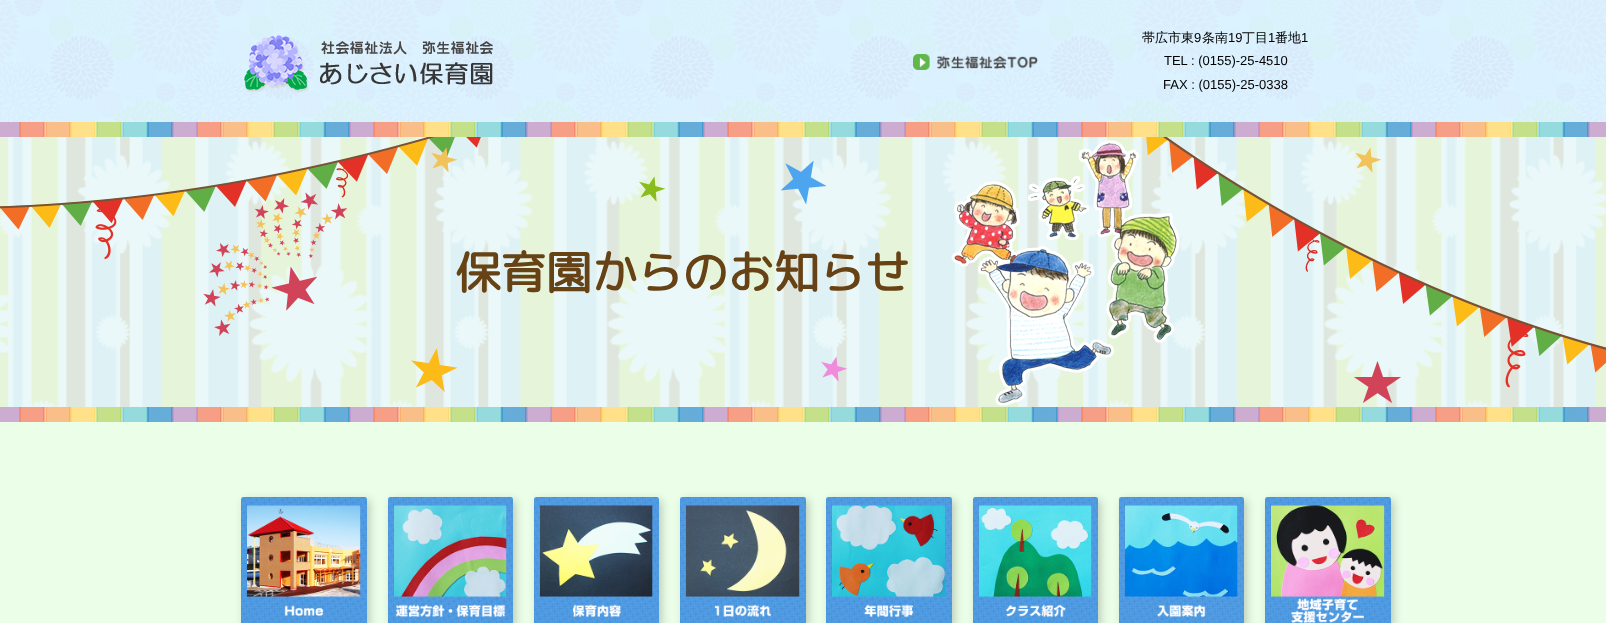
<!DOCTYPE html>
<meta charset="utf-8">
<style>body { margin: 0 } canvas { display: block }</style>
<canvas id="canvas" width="1606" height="623"></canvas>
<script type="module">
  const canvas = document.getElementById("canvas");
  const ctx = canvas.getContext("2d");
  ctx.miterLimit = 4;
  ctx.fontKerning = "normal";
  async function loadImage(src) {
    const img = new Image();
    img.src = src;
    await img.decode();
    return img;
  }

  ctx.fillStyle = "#ffffff";
  ctx.fillRect(0, 0, 1606, 623);
  ctx.drawImage(await loadImage("img1.png"), 0, 0, 1606, 122);
  ctx.drawImage(await loadImage("img2.png"), 244, 35, 249, 58);
  ctx.drawImage(await loadImage("img3.png"), 913, 54, 125, 16);
  ctx.font = "500 13px WenQuanYi Zen Hei";
  ctx.fillStyle = "#000000";
  ctx.fillText("帯広市東", 1142, 42);
  ctx.font = "13px Liberation Sans";
  ctx.fillText("9", 1194, 42);
  ctx.font = "500 13px WenQuanYi Zen Hei";
  ctx.fillText("条南", 1202, 42);
  ctx.font = "13px Liberation Sans";
  ctx.fillText("19", 1228, 42);
  ctx.font = "500 13px WenQuanYi Zen Hei";
  ctx.fillText("丁目", 1242, 42);
  ctx.font = "13px Liberation Sans";
  ctx.fillText("1", 1268, 42);
  ctx.font = "500 13px WenQuanYi Zen Hei";
  ctx.fillText("番地", 1275, 42);
  ctx.font = "13px Liberation Sans";
  ctx.fillText("1", 1301, 42);
  ctx.fillText("TEL : (0155)-25-4510", 1164, 65);
  ctx.fillText("FAX : (0155)-25-0338", 1163, 89);
  ctx.drawImage(await loadImage("img4.png"), 0, 122, 1606, 300);
  ctx.font = "bold 45.5px 'Rounded Mplus 1c'";
  ctx.fillStyle = "#674215";
  ctx.fillText("保育園からのお知らせ", 455, 289);
  ctx.fillStyle = "#ebffe8";
  ctx.fillRect(0, 422, 1606, 201);
  ctx.fillStyle = "rgba(0, 0, 0, 0.2)";
  ctx.filter = "blur(4px)";
  ctx.beginPath();
  ctx.rect(244, 500, 126, 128);
  ctx.fill();
  ctx.filter = "none";
  ctx.drawImage(await loadImage("img5.png"), 241, 497, 126, 126);
  ctx.filter = "blur(4px)";
  ctx.beginPath();
  ctx.rect(391, 500, 125, 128);
  ctx.fill();
  ctx.filter = "none";
  ctx.drawImage(await loadImage("img6.png"), 388, 497, 125, 126);
  ctx.filter = "blur(4px)";
  ctx.beginPath();
  ctx.rect(537, 500, 125, 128);
  ctx.fill();
  ctx.filter = "none";
  ctx.drawImage(await loadImage("img7.png"), 534, 497, 125, 126);
  ctx.filter = "blur(4px)";
  ctx.beginPath();
  ctx.rect(683, 500, 126, 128);
  ctx.fill();
  ctx.filter = "none";
  ctx.drawImage(await loadImage("img8.png"), 680, 497, 126, 126);
  ctx.filter = "blur(4px)";
  ctx.beginPath();
  ctx.rect(829, 500, 126, 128);
  ctx.fill();
  ctx.filter = "none";
  ctx.drawImage(await loadImage("img9.png"), 826, 497, 126, 126);
  ctx.filter = "blur(4px)";
  ctx.beginPath();
  ctx.rect(976, 500, 125, 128);
  ctx.fill();
  ctx.filter = "none";
  ctx.drawImage(await loadImage("img10.png"), 973, 497, 125, 126);
  ctx.filter = "blur(4px)";
  ctx.beginPath();
  ctx.rect(1122, 500, 125, 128);
  ctx.fill();
  ctx.filter = "none";
  ctx.drawImage(await loadImage("img11.png"), 1119, 497, 125, 126);
  ctx.filter = "blur(4px)";
  ctx.beginPath();
  ctx.rect(1268, 500, 126, 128);
  ctx.fill();
  ctx.filter = "none";
  ctx.drawImage(await loadImage("img12.png"), 1265, 497, 126, 126);
</script>
